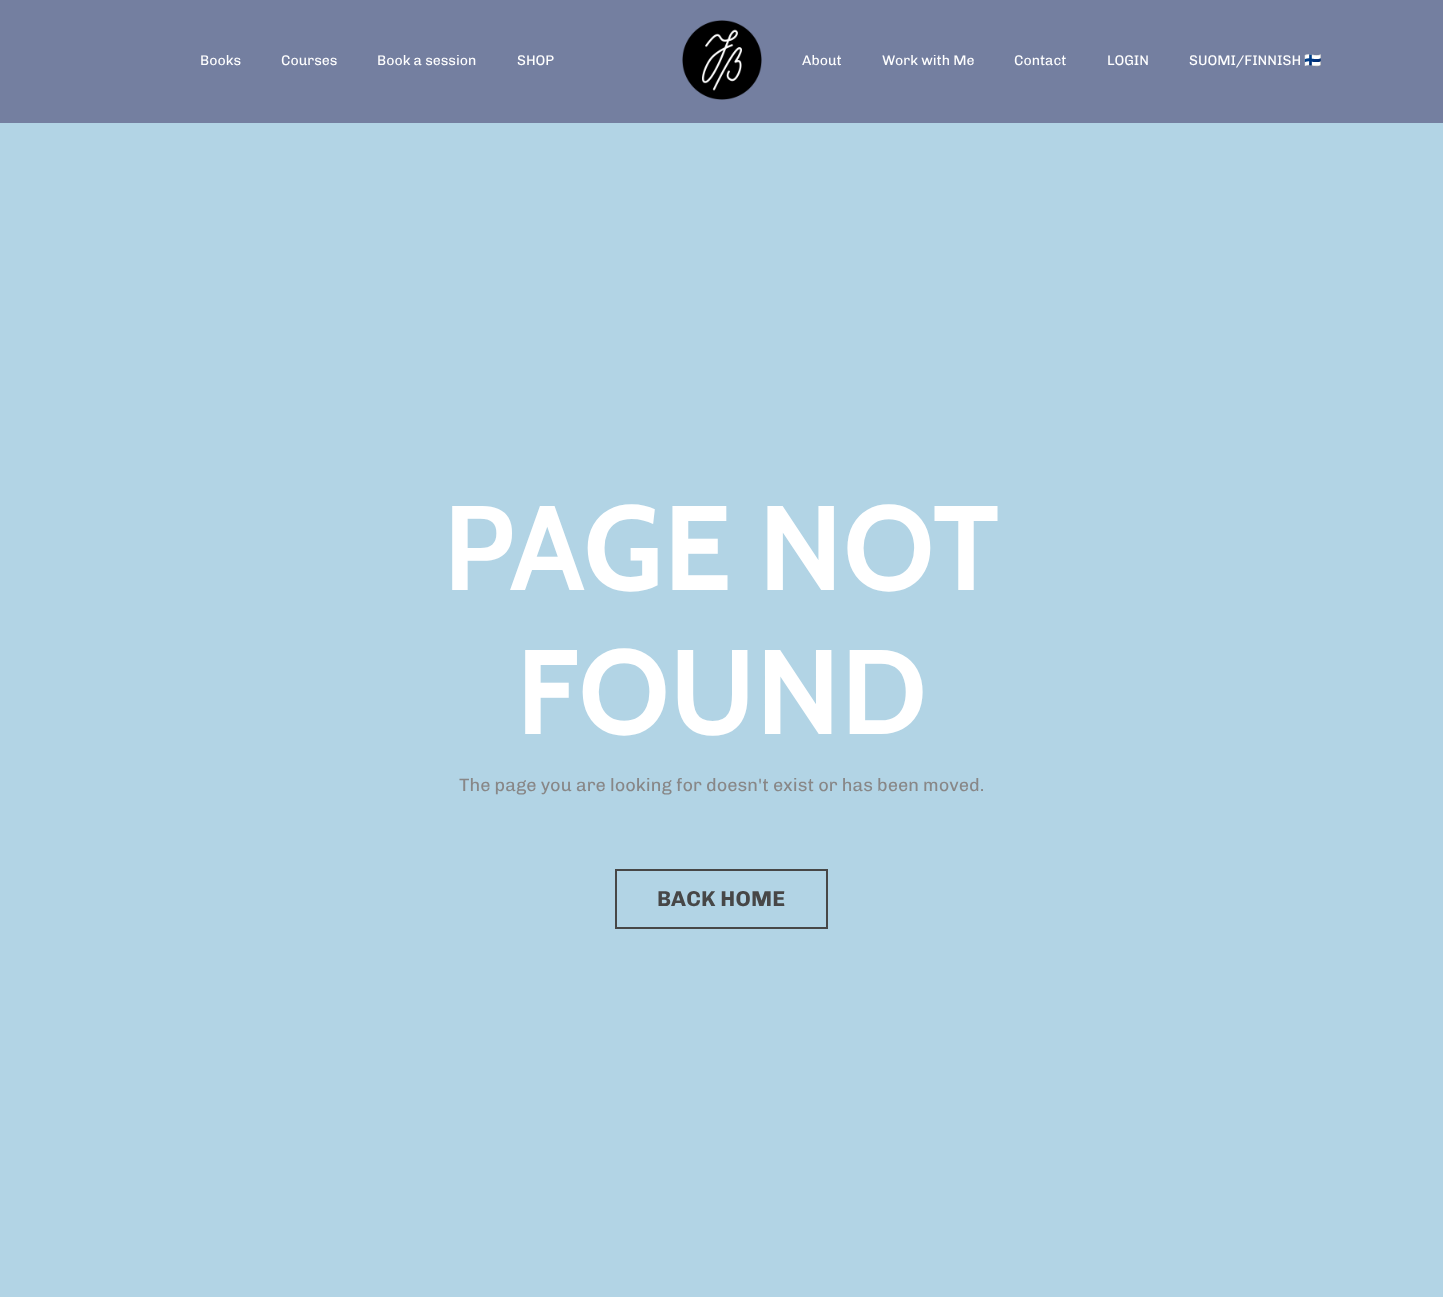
<!DOCTYPE html>
<meta charset="utf-8">
<style>body { margin: 0 } canvas { display: block }</style>
<canvas id="canvas" width="1443" height="1297"></canvas>
<script type="module">
  const canvas = document.getElementById("canvas");
  const ctx = canvas.getContext("2d");
  ctx.miterLimit = 4;
  ctx.fontKerning = "normal";
  async function loadImage(src) {
    const img = new Image();
    img.src = src;
    await img.decode();
    return img;
  }

  ctx.fillStyle = "#b2d4e5";
  ctx.fillRect(0, 0, 1443, 1297);
  ctx.fillStyle = "#747fa0";
  ctx.fillRect(0, 0, 1443, 123);
  ctx.font = "14px Chivo";
  ctx.fillStyle = "#ffffff";
  ctx.fillText("Books", 200, 65);
  ctx.fillText("Courses", 281, 65);
  ctx.fillText("Book a session", 377, 65);
  ctx.fillText("SHOP", 517, 65);
  ctx.drawImage(await loadImage("img1.png"), 682, 20, 80, 80);
  ctx.fillText("About", 802, 65);
  ctx.fillText("Work with Me", 882, 65);
  ctx.fillText("Contact", 1014, 65);
  ctx.fillText("LOGIN", 1107, 65);
  ctx.fillText("SUOMI/FINNISH", 1189, 65);
  ctx.font = "14px Noto Color Emoji";
  ctx.fillText("🇫🇮", 1304, 65);
  ctx.font = "bold 120px Cabin";
  ctx.fillText("PAGE NOT", 443, 590);
  ctx.fillText("FOUND", 516, 734);
  ctx.font = "18px Chivo";
  ctx.fillStyle = "#888787";
  ctx.fillText("The page you are looking for doesn't exist or has been moved.", 459, 791);
  ctx.strokeStyle = "#474747";
  ctx.lineWidth = 2;
  ctx.strokeRect(616, 870, 211, 58);
  ctx.letterSpacing = "0.25px";
  ctx.font = "bold 21.5px Chivo";
  ctx.fillStyle = "#474747";
  ctx.fillText("BACK HOME", 657, 906);
</script>
